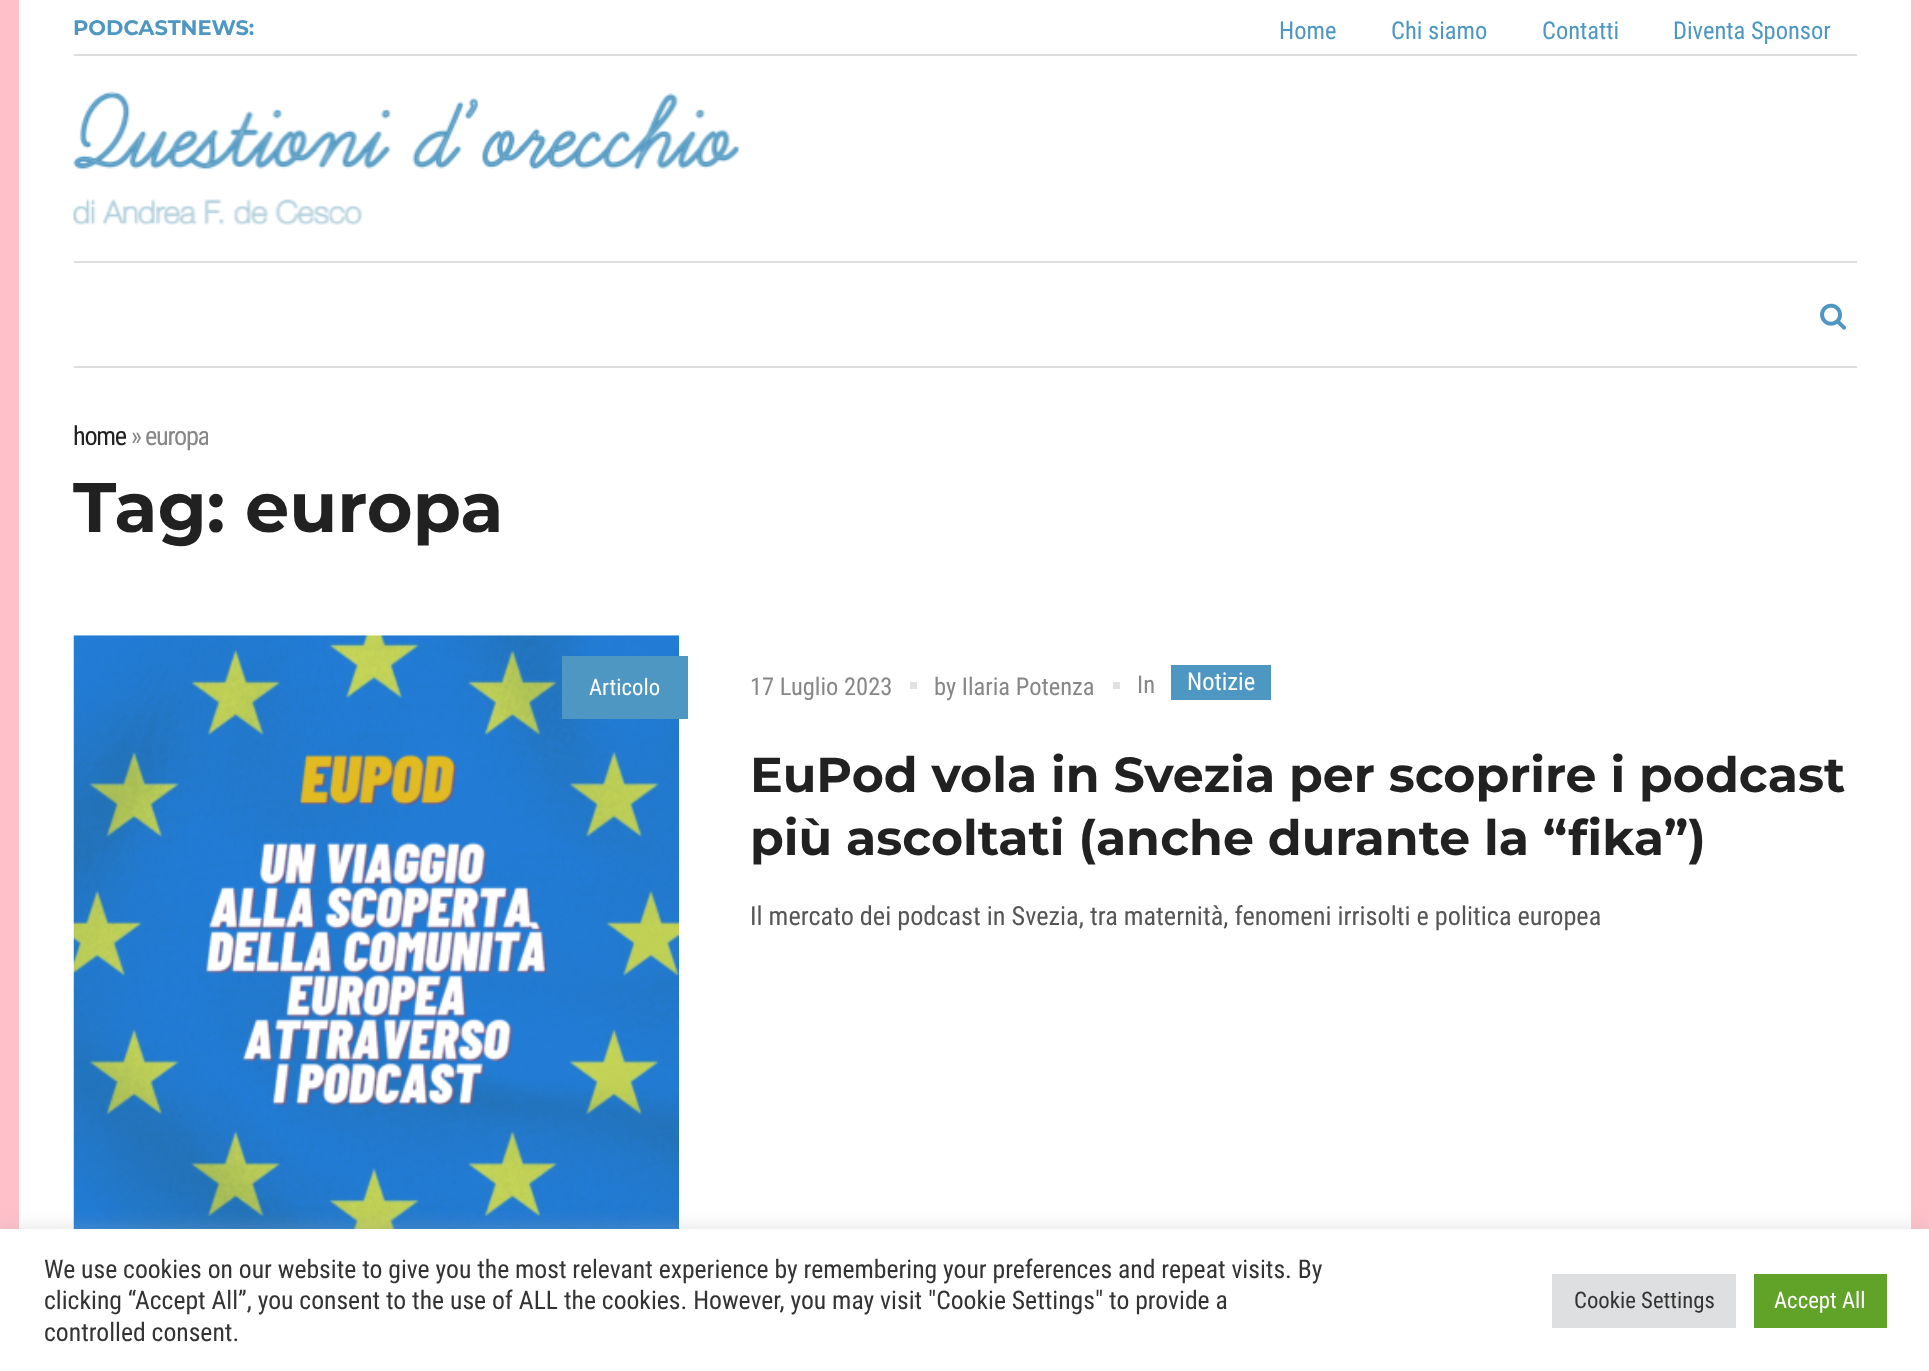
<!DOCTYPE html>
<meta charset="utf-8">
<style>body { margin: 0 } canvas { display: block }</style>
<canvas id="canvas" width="1929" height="1371"></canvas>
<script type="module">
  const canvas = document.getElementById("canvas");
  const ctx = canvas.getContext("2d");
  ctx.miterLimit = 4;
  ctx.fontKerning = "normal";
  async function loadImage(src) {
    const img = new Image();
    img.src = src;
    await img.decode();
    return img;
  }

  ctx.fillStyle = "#ffc0ca";
  ctx.fillRect(0, 0, 1929, 1371);
  ctx.fillStyle = "#ffffff";
  ctx.fillRect(19, 0, 1892, 368);
  ctx.fillStyle = "#dedede";
  ctx.fillRect(74, 54, 1783, 2);
  ctx.font = "bold 21px Montserrat";
  ctx.fillStyle = "#4e97c2";
  ctx.fillText("PODCASTNEWS:", 73, 35);
  ctx.font = "24.5px Roboto Condensed";
  ctx.fillText("Home", 1279, 39);
  ctx.fillText("Chi siamo", 1391, 39);
  ctx.fillText("Contatti", 1542, 39);
  ctx.fillText("Diventa Sponsor", 1673, 39);
  ctx.fillStyle = "#dedede";
  ctx.fillRect(74, 261, 1783, 2);
  ctx.drawImage(await loadImage("img1.png"), 73, 91, 666, 134);
  ctx.fillRect(74, 366, 1783, 2);
  ctx.drawImage(await loadImage("img2.png"), 1820, 303, 26, 27);
  ctx.fillStyle = "#ffffff";
  ctx.fillRect(19, 368, 1892, 861);
  ctx.letterSpacing = "-1.25px";
  ctx.font = "26.25px Roboto Condensed";
  ctx.fillStyle = "#212121";
  ctx.fillText("home", 73, 445);
  ctx.fillStyle = "#878787";
  ctx.fillText("»", 131, 445);
  ctx.save();
  ctx.beginPath();
  ctx.rect(74, 403, 134, 64);
  ctx.clip();
  ctx.fillText("europa", 145, 445);
  ctx.restore();
  ctx.letterSpacing = "0px";
  ctx.font = "bold 70px Montserrat";
  ctx.fillStyle = "#212121";
  ctx.fillText("Tag: europa", 73, 532);
  ctx.drawImage(await loadImage("img3.png"), 73, 635, 606, 594);
  ctx.fillStyle = "#4e97c2";
  ctx.fillRect(562, 656, 126, 63);
  ctx.font = "22.75px Roboto Condensed";
  ctx.fillStyle = "#ffffff";
  ctx.fillText("Articolo", 589, 695);
  ctx.font = "24.5px Roboto Condensed";
  ctx.fillStyle = "#878787";
  ctx.fillText("17 Luglio 2023", 750, 695);
  ctx.fillStyle = "#e1e1e1";
  ctx.fillRect(910, 682, 7, 7);
  ctx.fillStyle = "#878787";
  ctx.fillText("by Ilaria Potenza", 934, 695);
  ctx.fillStyle = "#e1e1e1";
  ctx.fillRect(1113, 682, 7, 7);
  ctx.fillStyle = "#878787";
  ctx.fillText("In", 1137, 693);
  ctx.fillStyle = "#4e97c2";
  ctx.fillRect(1171, 665, 100, 35);
  ctx.fillStyle = "#ffffff";
  ctx.fillText("Notizie", 1187, 690);
  ctx.font = "bold 49px Montserrat";
  ctx.fillStyle = "#212121";
  ctx.fillText("EuPod vola in Svezia per scoprire i podcast", 750, 792);
  ctx.fillText("più ascoltati (anche durante la “fika”)", 750, 855);
  ctx.font = "26.25px Roboto Condensed";
  ctx.fillStyle = "#555555";
  ctx.fillText("Il mercato dei podcast in Svezia, tra maternità, fenomeni irrisolti e politica europea", 750, 925);
  ctx.fillStyle = "rgba(172, 171, 171, 0.3)";
  ctx.filter = "blur(9px)";
  ctx.beginPath();
  ctx.rect(0, 1227, 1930, 143);
  ctx.fill();
  ctx.filter = "none";
  ctx.fillStyle = "#ffffff";
  ctx.fillRect(0, 1229, 1929, 142);
  ctx.font = "25.65px Roboto Condensed";
  ctx.fillStyle = "#333333";
  ctx.fillText("We use cookies on our website to give you the most relevant experience by remembering your preferences and repeat visits. By", 44, 1278);
  ctx.fillText("clicking “Accept All”, you consent to the use of ALL the cookies. However, you may visit \"Cookie Settings\" to provide a", 44, 1309);
  ctx.fillText("controlled consent.", 44, 1341);
  ctx.fillStyle = "#dedfe0";
  ctx.fillRect(1552, 1274, 184, 54);
  ctx.font = "22.75px Roboto Condensed";
  ctx.fillStyle = "#333333";
  ctx.fillText("Cookie Settings", 1574, 1308);
  ctx.fillStyle = "#61a229";
  ctx.fillRect(1754, 1274, 133, 54);
  ctx.fillStyle = "#ffffff";
  ctx.fillText("Accept All", 1774, 1308);
</script>
